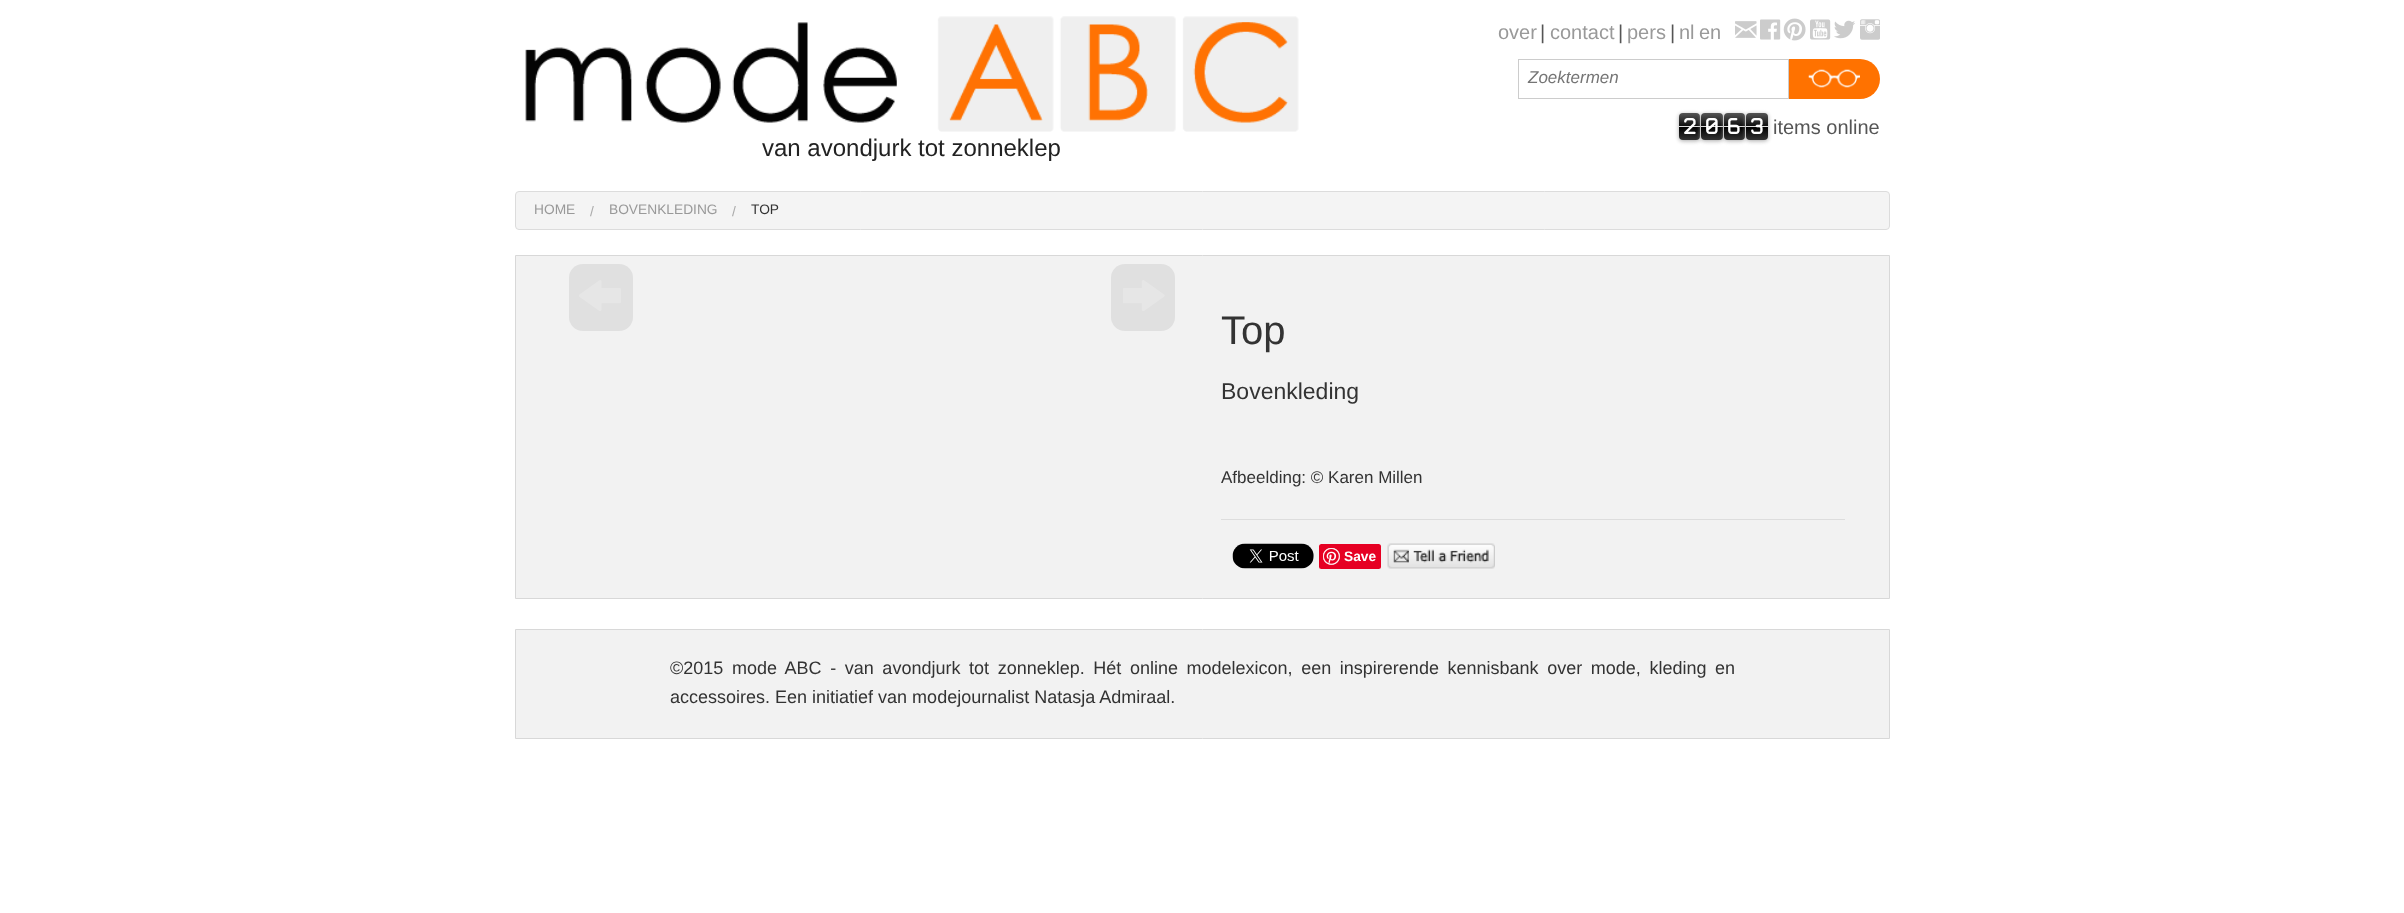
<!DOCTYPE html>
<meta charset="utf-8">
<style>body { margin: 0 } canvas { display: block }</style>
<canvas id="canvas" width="2404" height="913"></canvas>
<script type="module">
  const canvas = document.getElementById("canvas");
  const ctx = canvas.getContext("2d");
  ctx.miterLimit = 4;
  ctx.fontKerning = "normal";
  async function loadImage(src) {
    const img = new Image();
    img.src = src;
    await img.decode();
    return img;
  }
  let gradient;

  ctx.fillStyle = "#ffffff";
  ctx.fillRect(0, 0, 2404, 913);
  ctx.font = "20px Liberation Sans";
  ctx.fillStyle = "#999999";
  ctx.fillText("over", 1498, 39);
  ctx.fillStyle = "#555555";
  ctx.fillText("|", 1540, 39);
  ctx.fillStyle = "#999999";
  ctx.fillText("contact", 1550, 39);
  ctx.fillStyle = "#555555";
  ctx.fillText("|", 1618, 39);
  ctx.fillStyle = "#999999";
  ctx.fillText("pers", 1627, 39);
  ctx.fillStyle = "#555555";
  ctx.fillText("|", 1670, 39);
  ctx.fillStyle = "#999999";
  ctx.fillText("nl", 1679, 39);
  ctx.fillText("en", 1699, 39);
  ctx.drawImage(await loadImage("img1.png"), 1735, 21, 22, 17);
  ctx.drawImage(await loadImage("img2.png"), 1760, 19, 21, 21);
  ctx.drawImage(await loadImage("img3.png"), 1783, 18, 23, 23);
  ctx.drawImage(await loadImage("img4.png"), 1810, 19, 21, 21);
  ctx.drawImage(await loadImage("img5.png"), 1834, 20, 21, 19);
  ctx.drawImage(await loadImage("img6.png"), 1860, 19, 20, 21);
  ctx.strokeStyle = "#cccccc";
  ctx.strokeRect(1518.5, 59.5, 270, 39);
  ctx.font = "italic 17px Liberation Sans";
  ctx.fillStyle = "#757575";
  ctx.fillText("Zoektermen", 1528, 83);
  ctx.fillStyle = "#ff7200";
  ctx.beginPath();
  ctx.roundRect(1789, 59, 91, 40, [0, 20, 20, 0]);
  ctx.fill();
  ctx.drawImage(await loadImage("img7.png"), 1808, 69, 52, 19);
  ctx.fillStyle = "#aaaaaa";
  ctx.filter = "blur(2px)";
  ctx.beginPath();
  ctx.roundRect(1679, 114, 21, 27, 4);
  ctx.fill();
  ctx.filter = "none";
  gradient = ctx.createLinearGradient(1689, 113, 1689, 140);
  gradient.addColorStop(0, "#555555");
  gradient.addColorStop(0.47, "#111111");
  gradient.addColorStop(0.49, "#dddddd");
  gradient.addColorStop(0.5, "#dddddd");
  gradient.addColorStop(0.52, "#000000");
  gradient.addColorStop(1, "#333333");
  ctx.fillStyle = gradient;
  ctx.beginPath();
  ctx.roundRect(1679, 113, 21, 27, 4);
  ctx.fill();
  ctx.font = "24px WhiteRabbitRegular";
  ctx.fillStyle = "#ffffff";
  ctx.fillText("2", 1683, 134);
  ctx.fillStyle = "#aaaaaa";
  ctx.filter = "blur(2px)";
  ctx.beginPath();
  ctx.roundRect(1701, 114, 22, 27, 4);
  ctx.fill();
  ctx.filter = "none";
  gradient = ctx.createLinearGradient(1712, 113, 1712, 140);
  gradient.addColorStop(0, "#555555");
  gradient.addColorStop(0.47, "#111111");
  gradient.addColorStop(0.49, "#dddddd");
  gradient.addColorStop(0.5, "#dddddd");
  gradient.addColorStop(0.52, "#000000");
  gradient.addColorStop(1, "#333333");
  ctx.fillStyle = gradient;
  ctx.beginPath();
  ctx.roundRect(1701, 113, 22, 27, 4);
  ctx.fill();
  ctx.fillStyle = "#ffffff";
  ctx.fillText("0", 1705, 134);
  ctx.fillStyle = "#aaaaaa";
  ctx.filter = "blur(2px)";
  ctx.beginPath();
  ctx.roundRect(1724, 114, 21, 27, 4);
  ctx.fill();
  ctx.filter = "none";
  gradient = ctx.createLinearGradient(1734, 113, 1734, 140);
  gradient.addColorStop(0, "#555555");
  gradient.addColorStop(0.47, "#111111");
  gradient.addColorStop(0.49, "#dddddd");
  gradient.addColorStop(0.5, "#dddddd");
  gradient.addColorStop(0.52, "#000000");
  gradient.addColorStop(1, "#333333");
  ctx.fillStyle = gradient;
  ctx.beginPath();
  ctx.roundRect(1724, 113, 21, 27, 4);
  ctx.fill();
  ctx.fillStyle = "#ffffff";
  ctx.fillText("6", 1727, 134);
  ctx.fillStyle = "#aaaaaa";
  ctx.filter = "blur(2px)";
  ctx.beginPath();
  ctx.roundRect(1746, 114, 22, 27, 4);
  ctx.fill();
  ctx.filter = "none";
  gradient = ctx.createLinearGradient(1757, 113, 1757, 140);
  gradient.addColorStop(0, "#555555");
  gradient.addColorStop(0.47, "#111111");
  gradient.addColorStop(0.49, "#dddddd");
  gradient.addColorStop(0.5, "#dddddd");
  gradient.addColorStop(0.52, "#000000");
  gradient.addColorStop(1, "#333333");
  ctx.fillStyle = gradient;
  ctx.beginPath();
  ctx.roundRect(1746, 113, 22, 27, 4);
  ctx.fill();
  ctx.fillStyle = "#ffffff";
  ctx.fillText("3", 1750, 134);
  ctx.font = "20px Liberation Sans";
  ctx.fillStyle = "#555555";
  ctx.fillText("items online", 1773, 134);
  ctx.drawImage(await loadImage("img8.png"), 525, 16, 774, 116);
  ctx.font = "24px Liberation Sans";
  ctx.fillStyle = "#222222";
  ctx.fillText("van avondjurk tot zonneklep", 762, 156);
  ctx.fillStyle = "#f4f4f4";
  ctx.beginPath();
  ctx.roundRect(515.5, 191.5, 1374, 38, 3.5);
  ctx.fill();
  ctx.strokeStyle = "#dcdcdc";
  ctx.stroke();
  ctx.font = "13.75px Liberation Sans";
  ctx.fillStyle = "#999999";
  ctx.fillText("HOME", 534, 214);
  ctx.fillStyle = "#aaaaaa";
  ctx.fillText("/", 590, 216);
  ctx.fillStyle = "#999999";
  ctx.fillText("BOVENKLEDING", 609, 214);
  ctx.fillStyle = "#aaaaaa";
  ctx.fillText("/", 732, 216);
  ctx.fillStyle = "#333333";
  ctx.fillText("TOP", 751, 214);
  ctx.fillStyle = "#f2f2f2";
  ctx.beginPath();
  ctx.rect(515.5, 255.5, 1374, 343);
  ctx.fill();
  ctx.strokeStyle = "#d8d8d8";
  ctx.stroke();
  ctx.fillStyle = "#e0e0e0";
  ctx.beginPath();
  ctx.roundRect(569, 264, 64, 67, 14);
  ctx.fill();
  ctx.drawImage(await loadImage("img9.png"), 579, 280, 42, 31);
  ctx.beginPath();
  ctx.roundRect(1111, 264, 64, 67, 14);
  ctx.fill();
  ctx.drawImage(await loadImage("img10.png"), 1123, 280, 42, 31);
  ctx.font = "40px Liberation Sans";
  ctx.fillStyle = "#333333";
  ctx.fillText("Top", 1221, 344);
  ctx.font = "23px Liberation Sans";
  ctx.fillText("Bovenkleding", 1221, 399);
  ctx.font = "17px Liberation Sans";
  ctx.fillText("Afbeelding: © Karen Millen", 1221, 483);
  ctx.fillStyle = "#dddddd";
  ctx.fillRect(1221, 519, 624, 1);
  ctx.drawImage(await loadImage("img11.png"), 1232, 543, 82, 26);
  ctx.fillStyle = "#e60023";
  ctx.beginPath();
  ctx.roundRect(1319, 544, 62, 25, 2.5);
  ctx.fill();
  ctx.drawImage(await loadImage("img12.png"), 1323, 548, 17, 17);
  ctx.font = "bold 13.75px Liberation Sans";
  ctx.fillStyle = "#ffffff";
  ctx.fillText("Save", 1344, 561);
  ctx.drawImage(await loadImage("img13.png"), 1387, 543, 108, 26);
  ctx.fillStyle = "#f2f2f2";
  ctx.beginPath();
  ctx.rect(515.5, 629.5, 1374, 109);
  ctx.fill();
  ctx.stroke();
  ctx.wordSpacing = "3.6px";
  ctx.font = "18px Liberation Sans";
  ctx.fillStyle = "#333333";
  ctx.fillText("©2015 mode ABC - van avondjurk tot zonneklep. Hét online modelexicon, een inspirerende kennisbank over mode, kleding en", 670, 674);
  ctx.wordSpacing = "0px";
  ctx.fillText("accessoires. Een initiatief van modejournalist Natasja Admiraal.", 670, 703);
</script>
